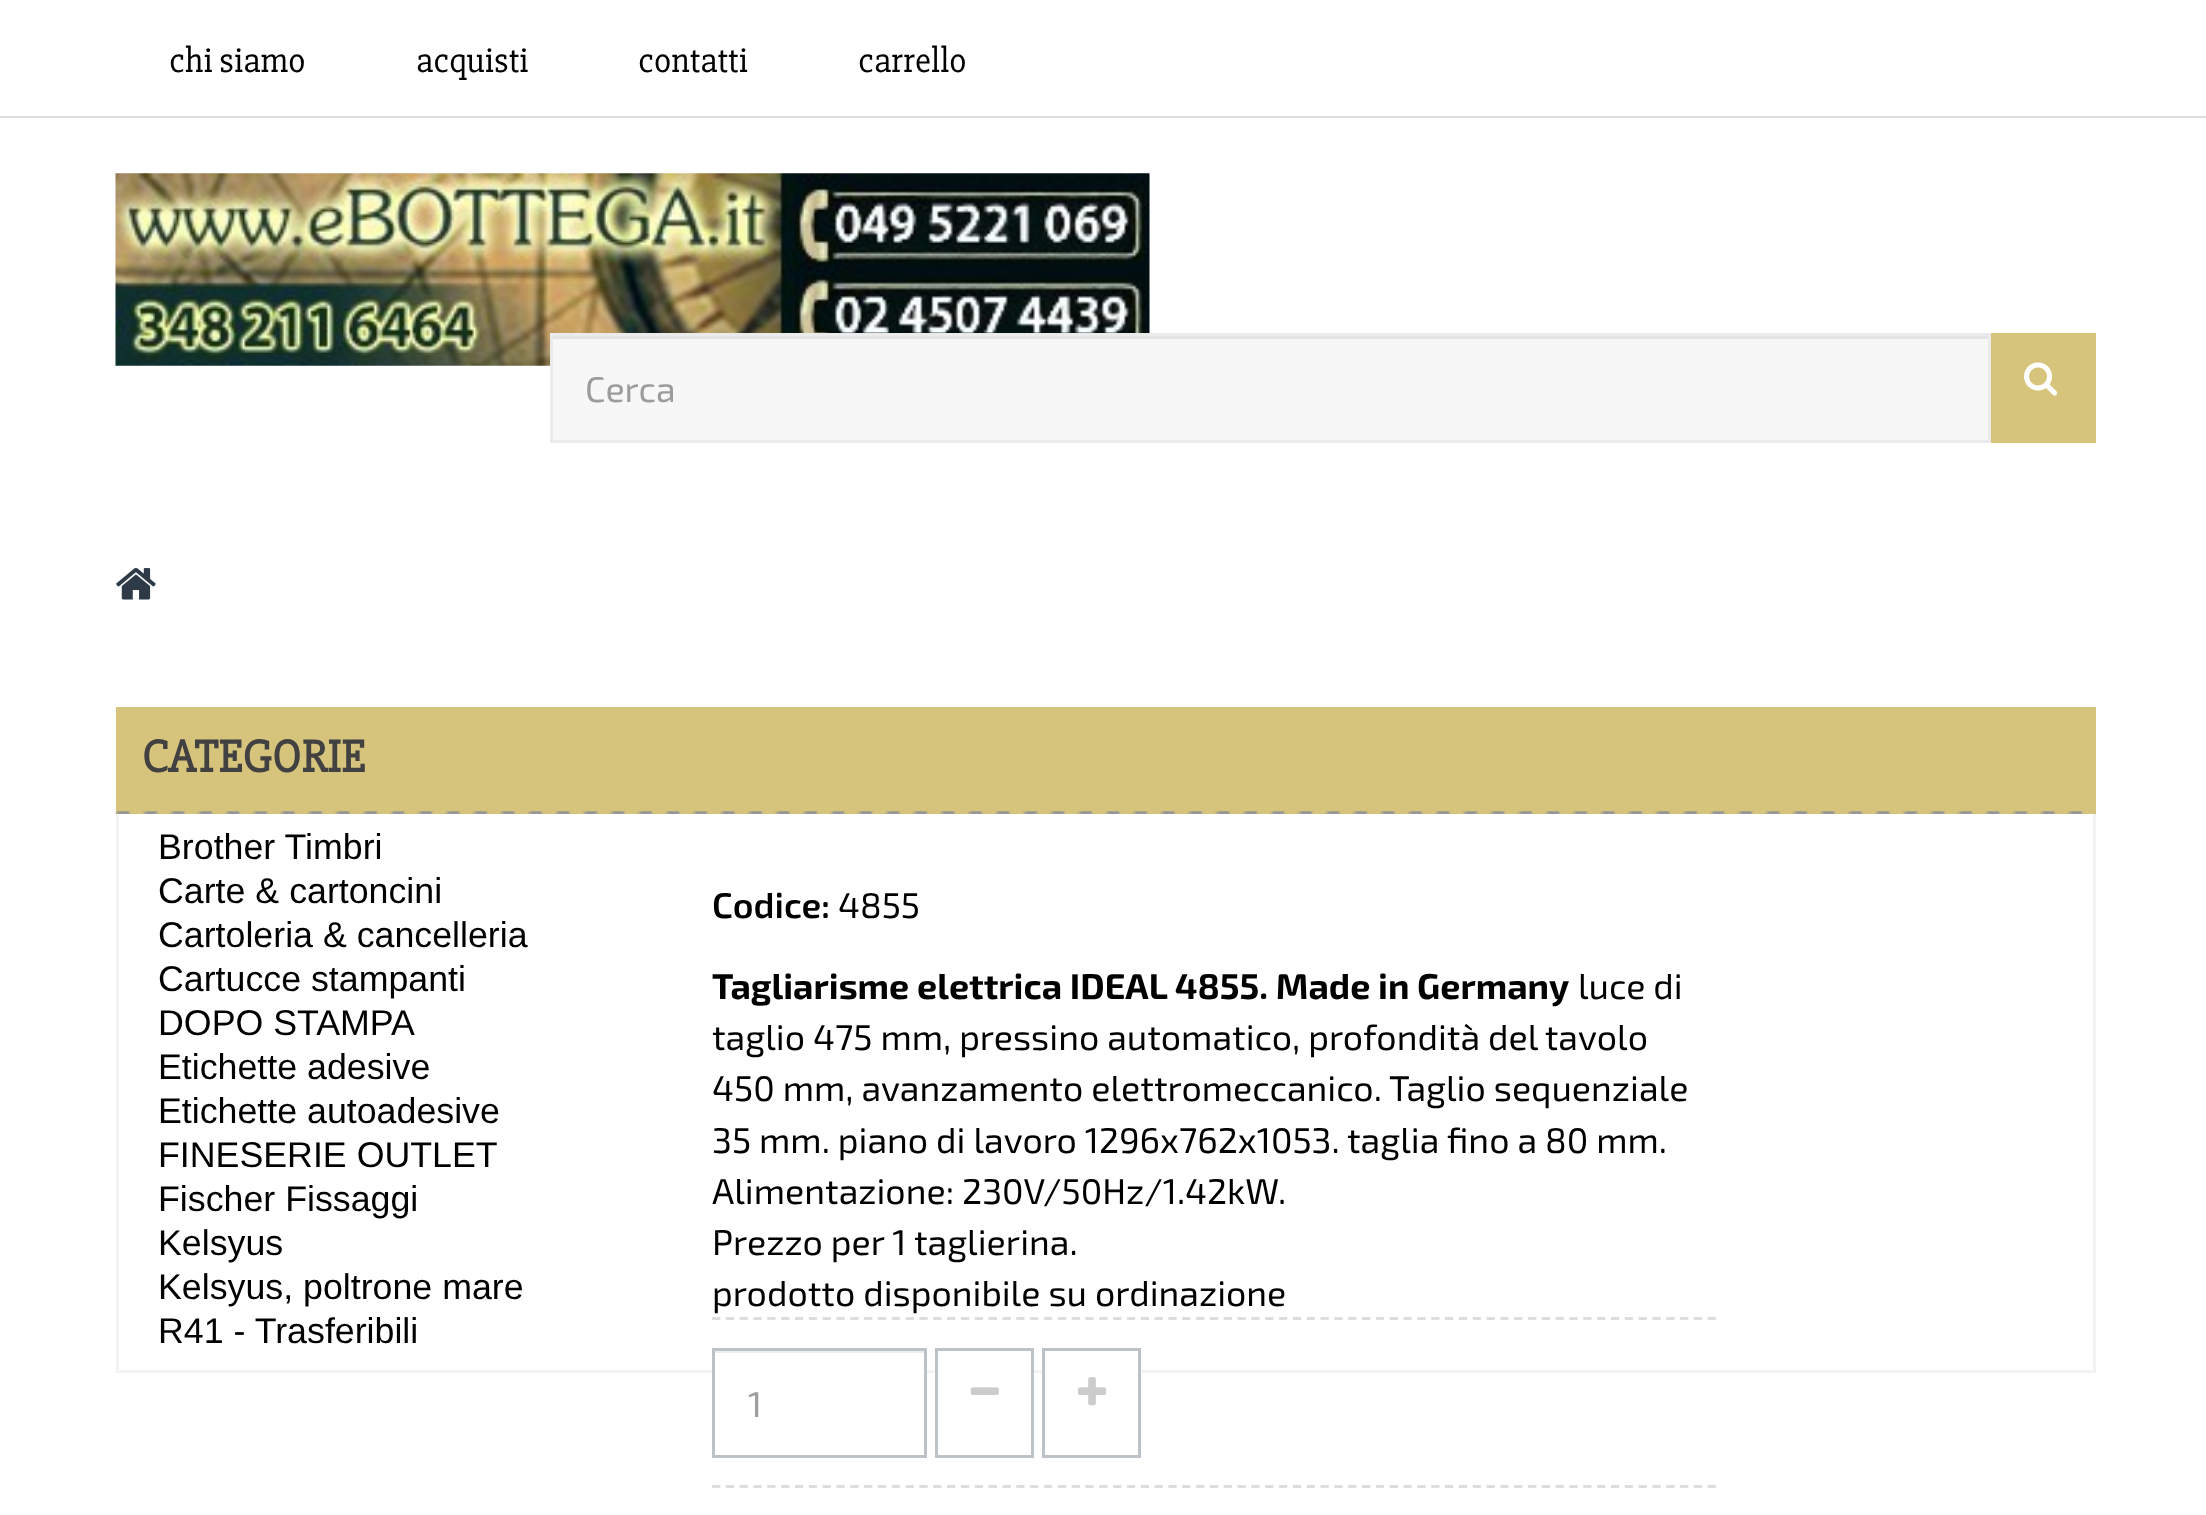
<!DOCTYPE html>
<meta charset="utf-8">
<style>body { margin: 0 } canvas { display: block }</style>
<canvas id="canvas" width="2206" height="1515"></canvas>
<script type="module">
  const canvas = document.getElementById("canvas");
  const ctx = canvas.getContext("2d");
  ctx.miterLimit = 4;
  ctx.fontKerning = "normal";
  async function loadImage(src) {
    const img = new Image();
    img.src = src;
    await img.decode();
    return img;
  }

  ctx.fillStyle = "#ffffff";
  ctx.fillRect(0, 0, 2206, 1515);
  ctx.fillStyle = "#dfdfdf";
  ctx.fillRect(0, 116, 2206, 2);
  ctx.font = "35.75px 'Slabo 27px'";
  ctx.fillStyle = "#000000";
  ctx.fillText("chi siamo", 169, 72);
  ctx.fillText("acquisti", 416, 72);
  ctx.fillText("contatti", 638, 72);
  ctx.fillText("carrello", 858, 72);
  ctx.drawImage(await loadImage("img1.png"), 115, 173, 1035, 193);
  ctx.fillStyle = "#f7f7f7";
  ctx.fillRect(553, 339, 1435, 101);
  ctx.fillStyle = "#e4e4e4";
  ctx.fillRect(553, 336, 1435, 3);
  ctx.strokeStyle = "#ebebeb";
  ctx.lineWidth = 3;
  ctx.strokeRect(551.5, 334.5, 1438, 107);
  ctx.font = "35.75px 'Exo 2'";
  ctx.fillStyle = "#9c9c9c";
  ctx.fillText("Cerca", 585, 402);
  ctx.fillStyle = "#d7c47c";
  ctx.fillRect(1991, 333, 105, 110);
  ctx.drawImage(await loadImage("img2.png"), 2024, 362, 34, 34);
  ctx.drawImage(await loadImage("img3.png"), 116, 568, 40, 32);
  ctx.fillRect(116, 707, 1980, 107);
  ctx.drawImage(await loadImage("img4.png"), 115, 811, 1981, 3);
  ctx.font = "bold 46.75px 'Slabo 27px'";
  ctx.fillStyle = "#414141";
  ctx.fillText("CATEGORIE", 142, 772);
  ctx.fillStyle = "#f3f3f3";
  ctx.fillRect(2093, 814, 3, 558);
  ctx.fillRect(116, 1370, 1980, 3);
  ctx.fillRect(116, 814, 3, 558);
  ctx.font = "35.75px Liberation Sans";
  ctx.fillStyle = "#000000";
  ctx.fillText("Brother Timbri", 158, 859);
  ctx.fillText("Carte & cartoncini", 158, 903);
  ctx.fillText("Cartoleria & cancelleria", 158, 947);
  ctx.fillText("Cartucce stampanti", 158, 991);
  ctx.fillText("DOPO STAMPA", 158, 1035);
  ctx.fillText("Etichette adesive", 158, 1079);
  ctx.fillText("Etichette autoadesive", 158, 1123);
  ctx.fillText("FINESERIE OUTLET", 158, 1167);
  ctx.fillText("Fischer Fissaggi", 158, 1211);
  ctx.fillText("Kelsyus", 158, 1255);
  ctx.fillText("Kelsyus, poltrone mare", 158, 1299);
  ctx.fillText("R41 - Trasferibili", 158, 1343);
  ctx.font = "600 35.75px 'Exo 2'";
  ctx.fillText("Codice:", 712, 918);
  ctx.font = "35.75px 'Exo 2'";
  ctx.fillText("4855", 838, 918);
  ctx.font = "bold 35.75px 'Exo 2'";
  ctx.fillText("Tagliarisme elettrica IDEAL 4855. Made in Germany", 712, 999);
  ctx.font = "35.75px 'Exo 2'";
  ctx.fillText("luce di", 1578, 999);
  ctx.fillText("taglio 475 mm, pressino automatico, profondità del tavolo", 712, 1050);
  ctx.fillText("450 mm, avanzamento elettromeccanico. Taglio sequenziale", 712, 1101);
  ctx.fillText("35 mm. piano di lavoro 1296x762x1053. taglia fino a 80 mm.", 712, 1153);
  ctx.fillText("Alimentazione: 230V/50Hz/1.42kW.", 712, 1204);
  ctx.fillText("Prezzo per 1 taglierina.", 712, 1255);
  ctx.fillText("prodotto disponibile su ordinazione", 712, 1306);
  ctx.beginPath();
  ctx.moveTo(712, 1318.5);
  ctx.lineTo(1716, 1318.5);
  ctx.strokeStyle = "#dddddd";
  ctx.lineWidth = 2.8;
  ctx.setLineDash([8.25, 5.58]);
  ctx.stroke();
  ctx.fillStyle = "#ffffff";
  ctx.fillRect(715, 1370, 209, 3);
  ctx.fillStyle = "#ececec";
  ctx.fillRect(715, 1351, 209, 2);
  ctx.strokeStyle = "#bdc2c9";
  ctx.lineWidth = 3;
  ctx.setLineDash([]);
  ctx.strokeRect(713.5, 1349.5, 212, 107);
  ctx.fillStyle = "#9c9c9c";
  ctx.fillText("1", 748, 1417);
  ctx.fillStyle = "#ffffff";
  ctx.fillRect(938, 1370, 93, 3);
  ctx.strokeRect(936.5, 1349.5, 96, 107);
  ctx.drawImage(await loadImage("img5.png"), 970, 1387, 29, 8);
  ctx.fillRect(1045, 1370, 93, 3);
  ctx.strokeRect(1043.5, 1349.5, 96, 107);
  ctx.drawImage(await loadImage("img6.png"), 1078, 1377, 29, 29);
  ctx.beginPath();
  ctx.moveTo(712, 1486.5);
  ctx.lineTo(1716, 1486.5);
  ctx.strokeStyle = "#dddddd";
  ctx.lineWidth = 2.8;
  ctx.setLineDash([8.25, 5.58]);
  ctx.stroke();
</script>
